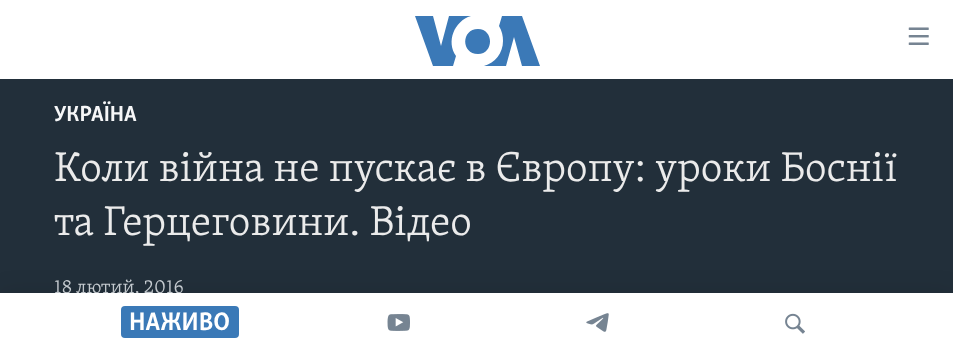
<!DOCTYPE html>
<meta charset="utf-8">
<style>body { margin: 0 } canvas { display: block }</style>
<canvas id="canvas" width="953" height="355"></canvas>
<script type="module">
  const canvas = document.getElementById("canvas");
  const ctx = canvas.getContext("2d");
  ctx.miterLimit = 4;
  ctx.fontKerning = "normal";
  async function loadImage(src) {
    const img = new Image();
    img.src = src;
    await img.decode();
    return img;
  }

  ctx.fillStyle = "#222f3a";
  ctx.fillRect(0, 0, 953, 355);
  ctx.font = "bold 22.5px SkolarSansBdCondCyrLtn";
  ctx.fillStyle = "#f6f7f8";
  ctx.fillText("УКРАЇНА", 54, 121);
  ctx.font = "300 42.75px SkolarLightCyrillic";
  ctx.fillStyle = "#ebebeb";
  ctx.fillText("Коли війна не пускає в Європу: уроки Боснії", 54, 181);
  ctx.fillText("та Герцеговини. Відео", 54, 235);
  ctx.font = "300 19.75px SkolarLightCyrillic";
  ctx.fillStyle = "#cbd1d6";
  ctx.fillText("18 лютий, 2016", 54, 293);
  ctx.fillStyle = "#ffffff";
  ctx.fillRect(0, 0, 953, 79);
  ctx.fillStyle = "#3b79b7";
  ctx.beginPath();
  ctx.moveTo(456, 56);
  ctx.lineTo(453, 66);
  ctx.lineTo(433, 66);
  ctx.lineTo(415, 16);
  ctx.lineTo(433, 16);
  ctx.lineTo(441, 46);
  ctx.lineTo(449, 16);
  ctx.lineTo(471, 16);
  ctx.bezierCurveTo(454, 21, 446, 42, 456, 56);
  ctx.closePath();
  ctx.moveTo(478, 29);
  ctx.bezierCurveTo(461, 29, 461, 54, 478, 54);
  ctx.bezierCurveTo(494, 54, 494, 29, 478, 29);
  ctx.closePath();
  ctx.moveTo(503, 41);
  ctx.bezierCurveTo(503, 53, 495, 63, 484, 66);
  ctx.lineTo(506, 66);
  ctx.lineTo(514, 37);
  ctx.lineTo(522, 66);
  ctx.lineTo(540, 66);
  ctx.lineTo(522, 16);
  ctx.lineTo(502, 16);
  ctx.lineTo(499, 26);
  ctx.bezierCurveTo(502, 31, 503, 36, 503, 41);
  ctx.closePath();
  ctx.fill();
  ctx.drawImage(await loadImage("img1.png"), 908, 27, 21, 18);
  ctx.fillStyle = "rgba(0, 0, 0, 0.1)";
  ctx.filter = "blur(12.5px)";
  ctx.beginPath();
  ctx.rect(0, 293, 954, 62);
  ctx.fill();
  ctx.filter = "none";
  ctx.fillStyle = "#ffffff";
  ctx.fillRect(0, 293, 953, 62);
  ctx.fillStyle = "#3a79b7";
  ctx.beginPath();
  ctx.roundRect(121, 306, 118, 32, 4);
  ctx.fill();
  ctx.font = "bold 26px SkolarSansBdCondCyrLtn";
  ctx.fillStyle = "#ffffff";
  ctx.fillText("НАЖИВО", 129, 330);
  ctx.drawImage(await loadImage("img2.png"), 387, 314, 23, 17);
  ctx.drawImage(await loadImage("img3.png"), 586, 313, 23, 19);
  ctx.drawImage(await loadImage("img4.png"), 785, 313, 20, 21);
</script>
